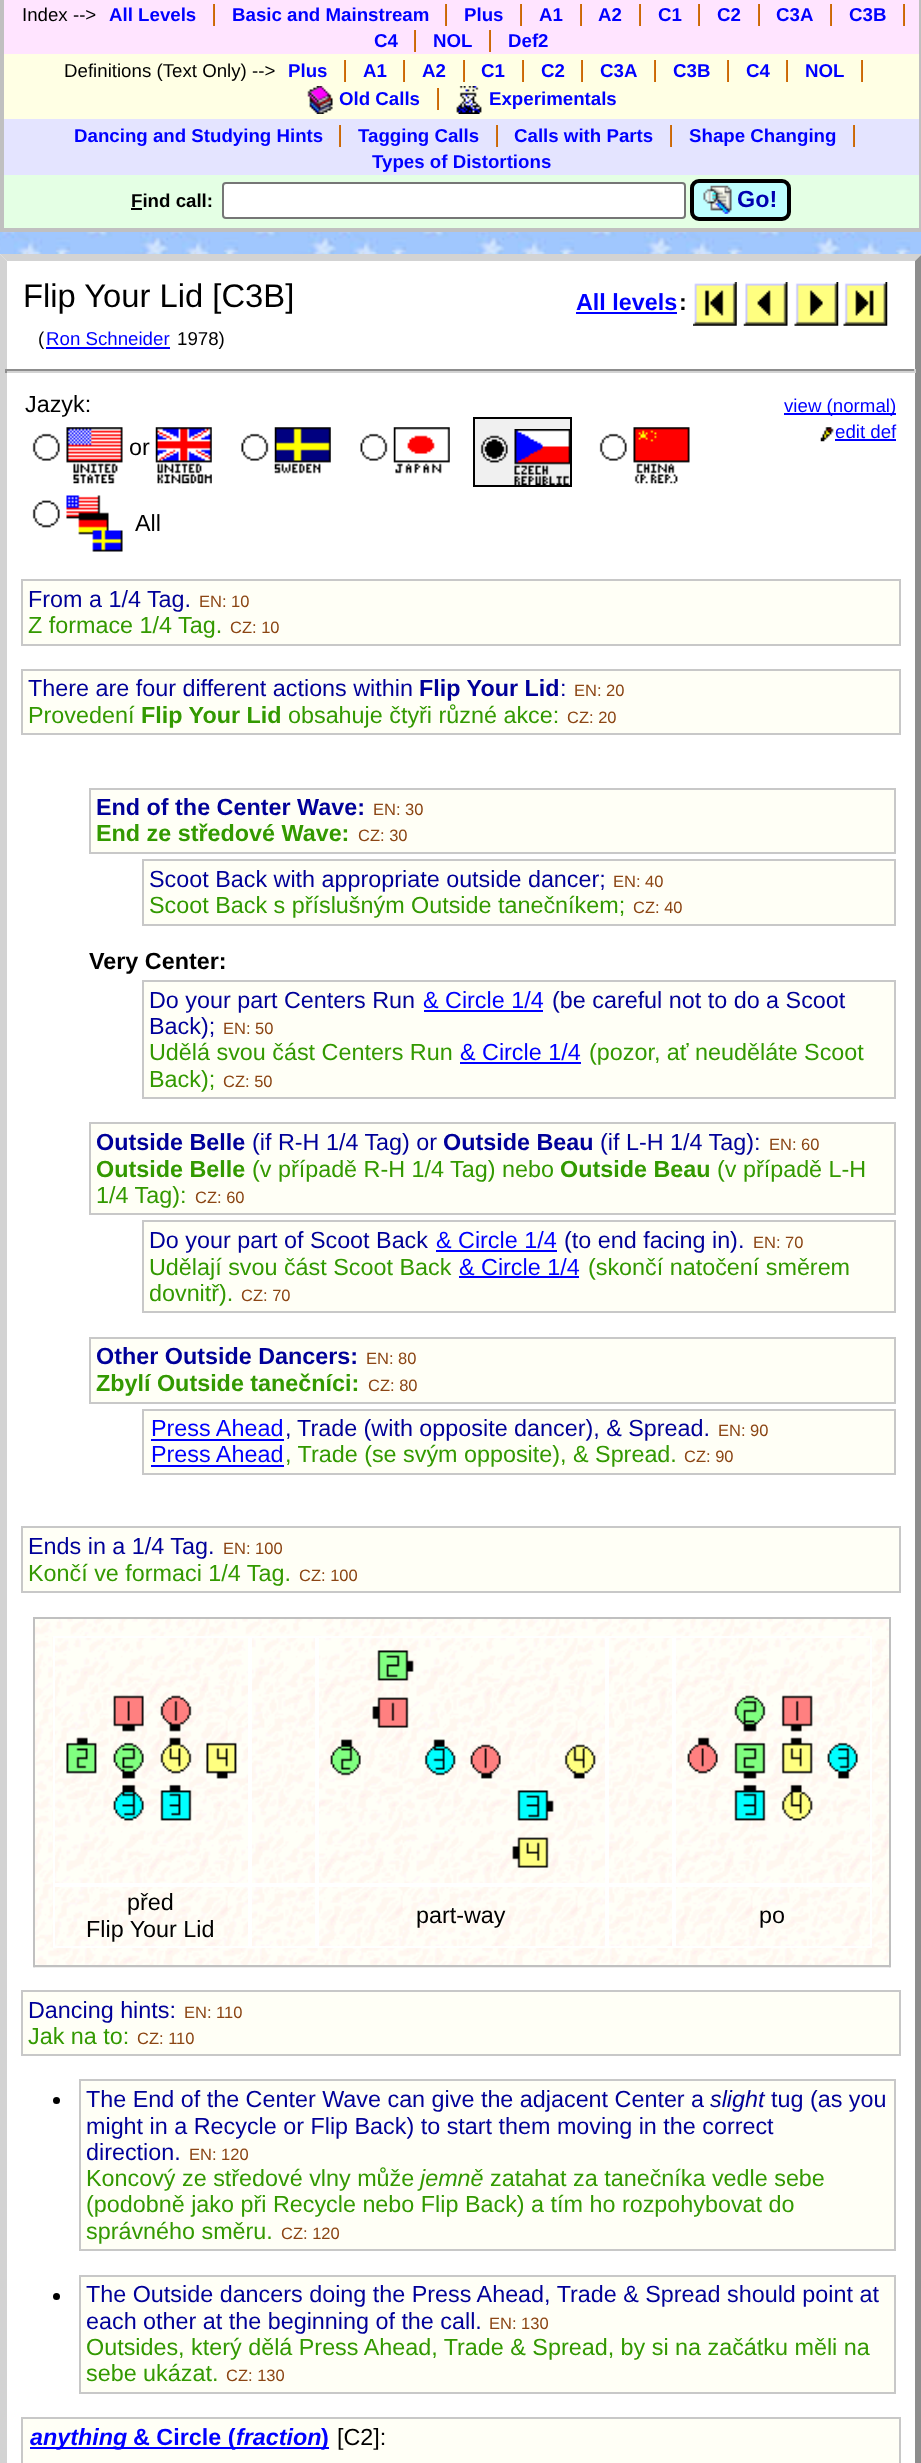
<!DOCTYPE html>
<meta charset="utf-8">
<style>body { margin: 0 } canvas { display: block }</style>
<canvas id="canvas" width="921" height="2463"></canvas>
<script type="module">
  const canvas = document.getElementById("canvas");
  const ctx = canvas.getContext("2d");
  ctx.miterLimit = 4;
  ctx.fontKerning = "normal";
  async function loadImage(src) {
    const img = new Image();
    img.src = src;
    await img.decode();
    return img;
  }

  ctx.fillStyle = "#ffffff";
  ctx.fillRect(0, 0, 921, 2463);
  ctx.drawImage(await loadImage("img1.png"), 0, 232, 921, 22);
  ctx.fillStyle = "#c0c0c0";
  ctx.fillRect(919, 0, 2, 231);
  ctx.fillRect(0, 228, 921, 4);
  ctx.fillRect(0, 0, 4, 231);
  ctx.fillStyle = "#ffe4ff";
  ctx.fillRect(4, 0, 915, 54);
  ctx.font = "18.7px Liberation Sans";
  ctx.fillStyle = "#000000";
  ctx.fillText("Index -->", 22, 21);
  ctx.font = "bold 18.7px Liberation Sans";
  ctx.fillStyle = "#0000ff";
  ctx.fillText("All Levels", 109, 21);
  ctx.font = "23.35px Liberation Sans";
  ctx.fillStyle = "#cc6600";
  ctx.fillText("|", 211, 21);
  ctx.font = "bold 18.7px Liberation Sans";
  ctx.fillStyle = "#0000ff";
  ctx.fillText("Basic and Mainstream", 232, 21);
  ctx.font = "23.35px Liberation Sans";
  ctx.fillStyle = "#cc6600";
  ctx.fillText("|", 443, 21);
  ctx.font = "bold 18.7px Liberation Sans";
  ctx.fillStyle = "#0000ff";
  ctx.fillText("Plus", 464, 21);
  ctx.font = "23.35px Liberation Sans";
  ctx.fillStyle = "#cc6600";
  ctx.fillText("|", 518, 21);
  ctx.font = "bold 18.7px Liberation Sans";
  ctx.fillStyle = "#0000ff";
  ctx.fillText("A1", 539, 21);
  ctx.font = "23.35px Liberation Sans";
  ctx.fillStyle = "#cc6600";
  ctx.fillText("|", 578, 21);
  ctx.font = "bold 18.7px Liberation Sans";
  ctx.fillStyle = "#0000ff";
  ctx.fillText("A2", 598, 21);
  ctx.font = "23.35px Liberation Sans";
  ctx.fillStyle = "#cc6600";
  ctx.fillText("|", 637, 21);
  ctx.font = "bold 18.7px Liberation Sans";
  ctx.fillStyle = "#0000ff";
  ctx.fillText("C1", 658, 21);
  ctx.font = "23.35px Liberation Sans";
  ctx.fillStyle = "#cc6600";
  ctx.fillText("|", 696, 21);
  ctx.font = "bold 18.7px Liberation Sans";
  ctx.fillStyle = "#0000ff";
  ctx.fillText("C2", 717, 21);
  ctx.font = "23.35px Liberation Sans";
  ctx.fillStyle = "#cc6600";
  ctx.fillText("|", 756, 21);
  ctx.font = "bold 18.7px Liberation Sans";
  ctx.fillStyle = "#0000ff";
  ctx.fillText("C3A", 776, 21);
  ctx.font = "23.35px Liberation Sans";
  ctx.fillStyle = "#cc6600";
  ctx.fillText("|", 828, 21);
  ctx.font = "bold 18.7px Liberation Sans";
  ctx.fillStyle = "#0000ff";
  ctx.fillText("C3B", 849, 21);
  ctx.font = "23.35px Liberation Sans";
  ctx.fillStyle = "#cc6600";
  ctx.fillText("|", 901, 21);
  ctx.font = "bold 18.7px Liberation Sans";
  ctx.fillStyle = "#0000ff";
  ctx.fillText("C4", 374, 47);
  ctx.font = "23.35px Liberation Sans";
  ctx.fillStyle = "#cc6600";
  ctx.fillText("|", 412, 47);
  ctx.font = "bold 18.7px Liberation Sans";
  ctx.fillStyle = "#0000ff";
  ctx.fillText("NOL", 433, 47);
  ctx.font = "23.35px Liberation Sans";
  ctx.fillStyle = "#cc6600";
  ctx.fillText("|", 487, 47);
  ctx.font = "bold 18.7px Liberation Sans";
  ctx.fillStyle = "#0000ff";
  ctx.fillText("Def2", 508, 47);
  ctx.fillStyle = "#ffffe4";
  ctx.fillRect(4, 54, 915, 65);
  ctx.font = "18.7px Liberation Sans";
  ctx.fillStyle = "#000000";
  ctx.fillText("Definitions (Text Only) -->", 64, 77);
  ctx.font = "bold 18.7px Liberation Sans";
  ctx.fillStyle = "#0000ff";
  ctx.fillText("Plus", 288, 77);
  ctx.font = "23.35px Liberation Sans";
  ctx.fillStyle = "#cc6600";
  ctx.fillText("|", 342, 77);
  ctx.font = "bold 18.7px Liberation Sans";
  ctx.fillStyle = "#0000ff";
  ctx.fillText("A1", 363, 77);
  ctx.font = "23.35px Liberation Sans";
  ctx.fillStyle = "#cc6600";
  ctx.fillText("|", 401, 77);
  ctx.font = "bold 18.7px Liberation Sans";
  ctx.fillStyle = "#0000ff";
  ctx.fillText("A2", 422, 77);
  ctx.font = "23.35px Liberation Sans";
  ctx.fillStyle = "#cc6600";
  ctx.fillText("|", 461, 77);
  ctx.font = "bold 18.7px Liberation Sans";
  ctx.fillStyle = "#0000ff";
  ctx.fillText("C1", 481, 77);
  ctx.font = "23.35px Liberation Sans";
  ctx.fillStyle = "#cc6600";
  ctx.fillText("|", 520, 77);
  ctx.font = "bold 18.7px Liberation Sans";
  ctx.fillStyle = "#0000ff";
  ctx.fillText("C2", 541, 77);
  ctx.font = "23.35px Liberation Sans";
  ctx.fillStyle = "#cc6600";
  ctx.fillText("|", 579, 77);
  ctx.font = "bold 18.7px Liberation Sans";
  ctx.fillStyle = "#0000ff";
  ctx.fillText("C3A", 600, 77);
  ctx.font = "23.35px Liberation Sans";
  ctx.fillStyle = "#cc6600";
  ctx.fillText("|", 652, 77);
  ctx.font = "bold 18.7px Liberation Sans";
  ctx.fillStyle = "#0000ff";
  ctx.fillText("C3B", 673, 77);
  ctx.font = "23.35px Liberation Sans";
  ctx.fillStyle = "#cc6600";
  ctx.fillText("|", 725, 77);
  ctx.font = "bold 18.7px Liberation Sans";
  ctx.fillStyle = "#0000ff";
  ctx.fillText("C4", 746, 77);
  ctx.font = "23.35px Liberation Sans";
  ctx.fillStyle = "#cc6600";
  ctx.fillText("|", 784, 77);
  ctx.font = "bold 18.7px Liberation Sans";
  ctx.fillStyle = "#0000ff";
  ctx.fillText("NOL", 805, 77);
  ctx.font = "23.35px Liberation Sans";
  ctx.fillStyle = "#cc6600";
  ctx.fillText("|", 859, 77);
  ctx.drawImage(await loadImage("img2.png"), 307, 86, 26, 28);
  ctx.font = "bold 18.7px Liberation Sans";
  ctx.fillStyle = "#0000ff";
  ctx.fillText("Old Calls", 339, 105);
  ctx.font = "23.35px Liberation Sans";
  ctx.fillStyle = "#cc6600";
  ctx.fillText("|", 435, 105);
  ctx.drawImage(await loadImage("img3.png"), 456, 86, 26, 28);
  ctx.font = "bold 18.7px Liberation Sans";
  ctx.fillStyle = "#0000ff";
  ctx.fillText("Experimentals", 489, 105);
  ctx.fillStyle = "#e4e4ff";
  ctx.fillRect(4, 119, 915, 56);
  ctx.fillStyle = "#0000ff";
  ctx.fillText("Dancing and Studying Hints", 74, 142);
  ctx.font = "23.35px Liberation Sans";
  ctx.fillStyle = "#cc6600";
  ctx.fillText("|", 337, 142);
  ctx.font = "bold 18.7px Liberation Sans";
  ctx.fillStyle = "#0000ff";
  ctx.fillText("Tagging Calls", 358, 142);
  ctx.font = "23.35px Liberation Sans";
  ctx.fillStyle = "#cc6600";
  ctx.fillText("|", 494, 142);
  ctx.font = "bold 18.7px Liberation Sans";
  ctx.fillStyle = "#0000ff";
  ctx.fillText("Calls with Parts", 514, 142);
  ctx.font = "23.35px Liberation Sans";
  ctx.fillStyle = "#cc6600";
  ctx.fillText("|", 668, 142);
  ctx.font = "bold 18.7px Liberation Sans";
  ctx.fillStyle = "#0000ff";
  ctx.fillText("Shape Changing", 689, 142);
  ctx.font = "23.35px Liberation Sans";
  ctx.fillStyle = "#cc6600";
  ctx.fillText("|", 851, 142);
  ctx.font = "bold 18.7px Liberation Sans";
  ctx.fillStyle = "#0000ff";
  ctx.fillText("Types of Distortions", 372, 168);
  ctx.fillStyle = "#e4ffe4";
  ctx.fillRect(4, 175, 915, 53);
  ctx.fillStyle = "#000000";
  ctx.fillText("Find call:", 131, 207);
  ctx.fillRect(131, 208, 11, 2);
  ctx.fillStyle = "#ffffff";
  ctx.beginPath();
  ctx.roundRect(223, 183, 462, 35, 3);
  ctx.fill();
  ctx.strokeStyle = "#767676";
  ctx.lineWidth = 2;
  ctx.stroke();
  ctx.fillStyle = "#bfffff";
  ctx.beginPath();
  ctx.roundRect(692, 181, 97, 38, 7);
  ctx.fill();
  ctx.strokeStyle = "#000000";
  ctx.lineWidth = 4;
  ctx.stroke();
  ctx.drawImage(await loadImage("img4.png"), 703, 185, 29, 29);
  ctx.font = "bold 23.35px Liberation Sans";
  ctx.fillStyle = "#0000b0";
  ctx.fillText("Go!", 737, 207);
  ctx.fillStyle = "#d3d3d3";
  ctx.beginPath();
  ctx.moveTo(0, 254);
  ctx.lineTo(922, 254);
  ctx.lineTo(915, 261);
  ctx.lineTo(7, 261);
  ctx.closePath();
  ctx.fill();
  ctx.fillStyle = "#8d8d8d";
  ctx.beginPath();
  ctx.moveTo(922, 254);
  ctx.lineTo(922, 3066);
  ctx.lineTo(915, 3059);
  ctx.lineTo(915, 261);
  ctx.closePath();
  ctx.fill();
  ctx.fillStyle = "#d3d3d3";
  ctx.beginPath();
  ctx.moveTo(0, 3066);
  ctx.lineTo(0, 254);
  ctx.lineTo(7, 261);
  ctx.lineTo(7, 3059);
  ctx.closePath();
  ctx.fill();
  ctx.font = "32.75px Liberation Sans";
  ctx.fillStyle = "#000000";
  ctx.fillText("Flip Your Lid [C3B]", 23, 307);
  ctx.font = "18.7px Liberation Sans";
  ctx.fillText("(", 38, 345);
  ctx.fillStyle = "#0000ff";
  ctx.fillRect(46, 347, 124, 2);
  ctx.fillText("Ron Schneider", 46, 345);
  ctx.fillStyle = "#000000";
  ctx.fillText("1978)", 177, 345);
  ctx.font = "bold 23.35px Liberation Sans";
  ctx.fillStyle = "#0000ff";
  ctx.fillText("All levels", 576, 310);
  ctx.fillRect(576, 312, 101, 2);
  ctx.fillStyle = "#000000";
  ctx.fillText(":", 679, 310);
  ctx.drawImage(await loadImage("img5.png"), 693, 282, 44, 44);
  ctx.drawImage(await loadImage("img6.png"), 743, 282, 45, 44);
  ctx.drawImage(await loadImage("img7.png"), 794, 282, 45, 44);
  ctx.drawImage(await loadImage("img8.png"), 843, 282, 45, 44);
  ctx.fillStyle = "#8d8d8d";
  ctx.fillRect(5, 369, 910, 2);
  ctx.fillStyle = "#d3d3d3";
  ctx.fillRect(914, 369, 2, 4);
  ctx.fillRect(5, 371, 910, 2);
  ctx.fillStyle = "#8d8d8d";
  ctx.fillRect(5, 369, 2, 4);
  ctx.font = "23.35px Liberation Sans";
  ctx.fillStyle = "#000000";
  ctx.fillText("Jazyk:", 25, 412);
  ctx.drawImage(await loadImage("img9.png"), 32, 433, 28, 28);
  ctx.drawImage(await loadImage("img10.png"), 66, 427, 57, 57);
  ctx.fillText("or", 129, 455);
  ctx.drawImage(await loadImage("img11.png"), 155, 427, 57, 57);
  ctx.drawImage(await loadImage("img12.png"), 241, 433, 28, 28);
  ctx.drawImage(await loadImage("img13.png"), 274, 427, 57, 47);
  ctx.drawImage(await loadImage("img14.png"), 360, 433, 28, 28);
  ctx.drawImage(await loadImage("img15.png"), 393, 427, 57, 47);
  ctx.fillStyle = "#f0f0f0";
  ctx.beginPath();
  ctx.rect(474, 418, 97, 68);
  ctx.fill();
  ctx.lineWidth = 2;
  ctx.stroke();
  ctx.drawImage(await loadImage("img16.png"), 480, 435, 28, 28);
  ctx.drawImage(await loadImage("img17.png"), 514, 429, 56, 56);
  ctx.drawImage(await loadImage("img9.png"), 599, 433, 28, 28);
  ctx.drawImage(await loadImage("img18.png"), 633, 427, 57, 57);
  ctx.drawImage(await loadImage("img19.png"), 32, 500, 28, 28);
  ctx.drawImage(await loadImage("img20.png"), 66, 495, 57, 57);
  ctx.fillStyle = "#000000";
  ctx.fillText("All", 135, 531);
  ctx.fillStyle = "#0000ff";
  ctx.fillRect(784, 413, 112, 2);
  ctx.font = "18.7px Liberation Sans";
  ctx.fillText("view (normal)", 784, 412);
  ctx.drawImage(await loadImage("img21.png"), 820, 427, 14, 15);
  ctx.fillText("edit def", 835, 438);
  ctx.fillRect(835, 439, 61, 2);
  ctx.fillStyle = "#fffff6";
  ctx.beginPath();
  ctx.rect(22, 580, 878, 65);
  ctx.fill();
  ctx.strokeStyle = "#c8c8c8";
  ctx.stroke();
  ctx.font = "23.35px Liberation Sans";
  ctx.fillStyle = "#000099";
  ctx.fillText("From a 1/4 Tag.", 28, 607);
  ctx.font = "16.5px Liberation Sans";
  ctx.fillStyle = "#8b4513";
  ctx.fillText("EN: 10", 199, 607);
  ctx.font = "23.35px Liberation Sans";
  ctx.fillStyle = "#339900";
  ctx.fillText("Z formace 1/4 Tag.", 28, 633);
  ctx.font = "16.5px Liberation Sans";
  ctx.fillStyle = "#8b4513";
  ctx.fillText("CZ: 10", 230, 633);
  ctx.fillStyle = "#fffff6";
  ctx.beginPath();
  ctx.rect(22, 670, 878, 64);
  ctx.fill();
  ctx.stroke();
  ctx.font = "23.35px Liberation Sans";
  ctx.fillStyle = "#000099";
  ctx.fillText("There are four different actions within", 28, 696);
  ctx.font = "bold 23.35px Liberation Sans";
  ctx.fillText("Flip Your Lid", 419, 696);
  ctx.font = "23.35px Liberation Sans";
  ctx.fillText(":", 560, 696);
  ctx.font = "16.5px Liberation Sans";
  ctx.fillStyle = "#8b4513";
  ctx.fillText("EN: 20", 574, 696);
  ctx.font = "23.35px Liberation Sans";
  ctx.fillStyle = "#339900";
  ctx.fillText("Provedení", 28, 723);
  ctx.font = "bold 23.35px Liberation Sans";
  ctx.fillText("Flip Your Lid", 141, 723);
  ctx.font = "23.35px Liberation Sans";
  ctx.fillText("obsahuje čtyři různé akce:", 288, 723);
  ctx.font = "16.5px Liberation Sans";
  ctx.fillStyle = "#8b4513";
  ctx.fillText("CZ: 20", 567, 723);
  ctx.fillStyle = "#fffff6";
  ctx.beginPath();
  ctx.rect(90, 789, 805, 64);
  ctx.fill();
  ctx.stroke();
  ctx.font = "bold 23.35px Liberation Sans";
  ctx.fillStyle = "#000099";
  ctx.fillText("End of the Center Wave:", 96, 815);
  ctx.font = "16.5px Liberation Sans";
  ctx.fillStyle = "#8b4513";
  ctx.fillText("EN: 30", 373, 815);
  ctx.font = "bold 23.35px Liberation Sans";
  ctx.fillStyle = "#339900";
  ctx.fillText("End ze středové Wave:", 96, 841);
  ctx.font = "16.5px Liberation Sans";
  ctx.fillStyle = "#8b4513";
  ctx.fillText("CZ: 30", 358, 841);
  ctx.fillStyle = "#fffff6";
  ctx.beginPath();
  ctx.rect(143, 860, 752, 65);
  ctx.fill();
  ctx.stroke();
  ctx.font = "23.35px Liberation Sans";
  ctx.fillStyle = "#000099";
  ctx.fillText("Scoot Back with appropriate outside dancer;", 149, 887);
  ctx.font = "16.5px Liberation Sans";
  ctx.fillStyle = "#8b4513";
  ctx.fillText("EN: 40", 613, 887);
  ctx.font = "23.35px Liberation Sans";
  ctx.fillStyle = "#339900";
  ctx.fillText("Scoot Back s příslušným Outside tanečníkem;", 149, 913);
  ctx.font = "16.5px Liberation Sans";
  ctx.fillStyle = "#8b4513";
  ctx.fillText("CZ: 40", 633, 913);
  ctx.font = "bold 23.35px Liberation Sans";
  ctx.fillStyle = "#000000";
  ctx.fillText("Very Center:", 89, 969);
  ctx.fillStyle = "#fffff6";
  ctx.beginPath();
  ctx.rect(143, 981, 752, 117);
  ctx.fill();
  ctx.stroke();
  ctx.font = "23.35px Liberation Sans";
  ctx.fillStyle = "#000099";
  ctx.fillText("Do your part Centers Run", 149, 1008);
  ctx.fillStyle = "#0000ff";
  ctx.fillText("& Circle 1/4", 423, 1008);
  ctx.fillRect(424, 1010, 119, 2);
  ctx.fillStyle = "#000099";
  ctx.fillText("(be careful not to do a Scoot", 552, 1008);
  ctx.fillText("Back);", 149, 1034);
  ctx.font = "16.5px Liberation Sans";
  ctx.fillStyle = "#8b4513";
  ctx.fillText("EN: 50", 223, 1034);
  ctx.font = "23.35px Liberation Sans";
  ctx.fillStyle = "#339900";
  ctx.fillText("Udělá svou část Centers Run", 149, 1060);
  ctx.fillStyle = "#0000ff";
  ctx.fillText("& Circle 1/4", 460, 1060);
  ctx.fillRect(460, 1062, 121, 2);
  ctx.fillStyle = "#339900";
  ctx.fillText("(pozor, ať neuděláte Scoot", 589, 1060);
  ctx.fillText("Back);", 149, 1087);
  ctx.font = "16.5px Liberation Sans";
  ctx.fillStyle = "#8b4513";
  ctx.fillText("CZ: 50", 223, 1087);
  ctx.fillStyle = "#fffff6";
  ctx.beginPath();
  ctx.rect(90, 1123, 805, 91);
  ctx.fill();
  ctx.stroke();
  ctx.font = "bold 23.35px Liberation Sans";
  ctx.fillStyle = "#000099";
  ctx.fillText("Outside Belle", 96, 1150);
  ctx.font = "23.35px Liberation Sans";
  ctx.fillText("(if R-H 1/4 Tag) or", 252, 1150);
  ctx.font = "bold 23.35px Liberation Sans";
  ctx.fillText("Outside Beau", 443, 1150);
  ctx.font = "23.35px Liberation Sans";
  ctx.fillText("(if L-H 1/4 Tag):", 600, 1150);
  ctx.font = "16.5px Liberation Sans";
  ctx.fillStyle = "#8b4513";
  ctx.fillText("EN: 60", 769, 1150);
  ctx.font = "bold 23.35px Liberation Sans";
  ctx.fillStyle = "#339900";
  ctx.fillText("Outside Belle", 96, 1177);
  ctx.font = "23.35px Liberation Sans";
  ctx.fillText("(v případě R-H 1/4 Tag) nebo", 252, 1177);
  ctx.font = "bold 23.35px Liberation Sans";
  ctx.fillText("Outside Beau", 560, 1177);
  ctx.font = "23.35px Liberation Sans";
  ctx.fillText("(v případě L-H", 717, 1177);
  ctx.fillText("1/4 Tag):", 96, 1203);
  ctx.font = "16.5px Liberation Sans";
  ctx.fillStyle = "#8b4513";
  ctx.fillText("CZ: 60", 195, 1203);
  ctx.fillStyle = "#fffff6";
  ctx.beginPath();
  ctx.rect(143, 1221, 752, 91);
  ctx.fill();
  ctx.stroke();
  ctx.font = "23.35px Liberation Sans";
  ctx.fillStyle = "#000099";
  ctx.fillText("Do your part of Scoot Back", 149, 1248);
  ctx.fillStyle = "#0000ff";
  ctx.fillText("& Circle 1/4", 436, 1248);
  ctx.fillRect(436, 1250, 121, 2);
  ctx.fillStyle = "#000099";
  ctx.fillText("(to end facing in).", 564, 1248);
  ctx.font = "16.5px Liberation Sans";
  ctx.fillStyle = "#8b4513";
  ctx.fillText("EN: 70", 753, 1248);
  ctx.font = "23.35px Liberation Sans";
  ctx.fillStyle = "#339900";
  ctx.fillText("Udělají svou část Scoot Back", 149, 1275);
  ctx.fillStyle = "#0000ff";
  ctx.fillText("& Circle 1/4", 459, 1275);
  ctx.fillRect(459, 1276, 120, 2);
  ctx.fillStyle = "#339900";
  ctx.fillText("(skončí natočení směrem", 588, 1275);
  ctx.fillText("dovnitř).", 149, 1301);
  ctx.font = "16.5px Liberation Sans";
  ctx.fillStyle = "#8b4513";
  ctx.fillText("CZ: 70", 241, 1301);
  ctx.fillStyle = "#fffff6";
  ctx.beginPath();
  ctx.rect(90, 1338, 805, 65);
  ctx.fill();
  ctx.stroke();
  ctx.font = "bold 23.35px Liberation Sans";
  ctx.fillStyle = "#000099";
  ctx.fillText("Other Outside Dancers:", 96, 1364);
  ctx.font = "16.5px Liberation Sans";
  ctx.fillStyle = "#8b4513";
  ctx.fillText("EN: 80", 366, 1364);
  ctx.font = "bold 23.35px Liberation Sans";
  ctx.fillStyle = "#339900";
  ctx.fillText("Zbylí Outside tanečníci:", 96, 1391);
  ctx.font = "16.5px Liberation Sans";
  ctx.fillStyle = "#8b4513";
  ctx.fillText("CZ: 80", 368, 1391);
  ctx.fillStyle = "#fffff6";
  ctx.beginPath();
  ctx.rect(143, 1410, 752, 64);
  ctx.fill();
  ctx.stroke();
  ctx.font = "23.35px Liberation Sans";
  ctx.fillStyle = "#0000ff";
  ctx.fillText("Press Ahead", 151, 1436);
  ctx.fillRect(151, 1439, 133, 2);
  ctx.fillStyle = "#000099";
  ctx.fillText(",", 285, 1436);
  ctx.fillText("Trade (with opposite dancer), & Spread.", 297, 1436);
  ctx.font = "16.5px Liberation Sans";
  ctx.fillStyle = "#8b4513";
  ctx.fillText("EN: 90", 718, 1436);
  ctx.font = "23.35px Liberation Sans";
  ctx.fillStyle = "#0000ff";
  ctx.fillText("Press Ahead", 151, 1462);
  ctx.fillRect(151, 1465, 133, 2);
  ctx.fillStyle = "#339900";
  ctx.fillText(", Trade (se svým opposite), & Spread.", 285, 1462);
  ctx.font = "16.5px Liberation Sans";
  ctx.fillStyle = "#8b4513";
  ctx.fillText("CZ: 90", 684, 1462);
  ctx.fillStyle = "#fffff6";
  ctx.beginPath();
  ctx.rect(22, 1527, 878, 65);
  ctx.fill();
  ctx.stroke();
  ctx.font = "23.35px Liberation Sans";
  ctx.fillStyle = "#000099";
  ctx.fillText("Ends in a 1/4 Tag.", 28, 1554);
  ctx.font = "16.5px Liberation Sans";
  ctx.fillStyle = "#8b4513";
  ctx.fillText("EN: 100", 223, 1554);
  ctx.font = "23.35px Liberation Sans";
  ctx.fillStyle = "#339900";
  ctx.fillText("Končí ve formaci 1/4 Tag.", 28, 1581);
  ctx.font = "16.5px Liberation Sans";
  ctx.fillStyle = "#8b4513";
  ctx.fillText("CZ: 100", 299, 1581);
  ctx.fillStyle = "#fff9f3";
  ctx.fillRect(35, 1619, 854, 346);
  ctx.drawImage(await loadImage("img22.png"), 33, 1619, 858, 349);
  ctx.fillStyle = "#c0c0c0";
  ctx.fillRect(33, 1617, 858, 2);
  ctx.fillRect(890, 1617, 1, 350);
  ctx.fillRect(33, 1965, 858, 2);
  ctx.fillRect(33, 1617, 1, 350);
  ctx.fillStyle = "#fff9f3";
  ctx.fillRect(55, 1638, 815, 308);
  ctx.drawImage(await loadImage("img23.png"), 52, 1637, 818, 311);
  ctx.strokeStyle = "#ffffff";
  ctx.strokeRect(54, 1637, 195, 247);
  ctx.drawImage(await loadImage("img24.png"), 66, 1695, 171, 126);
  ctx.strokeRect(251, 1637, 65, 247);
  ctx.strokeRect(318, 1637, 288, 247);
  ctx.drawImage(await loadImage("img25.png"), 330, 1650, 266, 218);
  ctx.strokeRect(608, 1637, 65, 247);
  ctx.strokeRect(675, 1637, 196, 247);
  ctx.drawImage(await loadImage("img26.png"), 687, 1695, 171, 126);
  ctx.strokeRect(54, 1886, 195, 61);
  ctx.font = "23.35px Liberation Sans";
  ctx.fillStyle = "#000000";
  ctx.fillText("před", 127, 1910);
  ctx.fillText("Flip Your Lid", 86, 1937);
  ctx.strokeRect(251, 1886, 65, 61);
  ctx.strokeRect(318, 1886, 288, 61);
  ctx.fillText("part-way", 416, 1923);
  ctx.strokeRect(608, 1886, 65, 61);
  ctx.strokeRect(675, 1886, 196, 61);
  ctx.fillText("po", 759, 1923);
  ctx.fillStyle = "#fffff6";
  ctx.beginPath();
  ctx.rect(22, 1991, 878, 64);
  ctx.fill();
  ctx.strokeStyle = "#c8c8c8";
  ctx.stroke();
  ctx.fillStyle = "#000099";
  ctx.fillText("Dancing hints:", 28, 2018);
  ctx.font = "16.5px Liberation Sans";
  ctx.fillStyle = "#8b4513";
  ctx.fillText("EN: 110", 184, 2018);
  ctx.font = "23.35px Liberation Sans";
  ctx.fillStyle = "#339900";
  ctx.fillText("Jak na to:", 28, 2044);
  ctx.font = "16.5px Liberation Sans";
  ctx.fillStyle = "#8b4513";
  ctx.fillText("CZ: 110", 137, 2044);
  ctx.fillStyle = "#000000";
  ctx.beginPath();
  ctx.arc(56.5, 2100.5, 3.5, 0, Math.PI * 2);
  ctx.fill();
  ctx.fillStyle = "#fffff6";
  ctx.beginPath();
  ctx.rect(80, 2080, 815, 170);
  ctx.fill();
  ctx.stroke();
  ctx.font = "23.35px Liberation Sans";
  ctx.fillStyle = "#000099";
  ctx.fillText("The End of the Center Wave can give the adjacent Center a", 86, 2107);
  ctx.font = "italic 23.35px Liberation Sans";
  ctx.fillText("slight", 710, 2107);
  ctx.font = "23.35px Liberation Sans";
  ctx.fillText("tug (as you", 771, 2107);
  ctx.fillText("might in a Recycle or Flip Back) to start them moving in the correct", 86, 2134);
  ctx.fillText("direction.", 86, 2160);
  ctx.font = "16.5px Liberation Sans";
  ctx.fillStyle = "#8b4513";
  ctx.fillText("EN: 120", 189, 2160);
  ctx.font = "23.35px Liberation Sans";
  ctx.fillStyle = "#339900";
  ctx.fillText("Koncový ze středové vlny může", 86, 2186);
  ctx.font = "italic 23.35px Liberation Sans";
  ctx.fillText("jemně", 420, 2186);
  ctx.font = "23.35px Liberation Sans";
  ctx.fillText("zatahat za tanečníka vedle sebe", 490, 2186);
  ctx.fillText("(podobně jako při Recycle nebo Flip Back) a tím ho rozpohybovat do", 86, 2212);
  ctx.fillText("správného směru.", 86, 2239);
  ctx.font = "16.5px Liberation Sans";
  ctx.fillStyle = "#8b4513";
  ctx.fillText("CZ: 120", 281, 2239);
  ctx.fillStyle = "#000000";
  ctx.beginPath();
  ctx.arc(56.5, 2296.5, 3.5, 0, Math.PI * 2);
  ctx.fill();
  ctx.fillStyle = "#fffff6";
  ctx.beginPath();
  ctx.rect(80, 2276, 815, 117);
  ctx.fill();
  ctx.stroke();
  ctx.font = "23.35px Liberation Sans";
  ctx.fillStyle = "#000099";
  ctx.fillText("The Outside dancers doing the Press Ahead, Trade & Spread should point at", 86, 2302);
  ctx.fillText("each other at the beginning of the call.", 86, 2329);
  ctx.font = "16.5px Liberation Sans";
  ctx.fillStyle = "#8b4513";
  ctx.fillText("EN: 130", 489, 2329);
  ctx.font = "23.35px Liberation Sans";
  ctx.fillStyle = "#339900";
  ctx.fillText("Outsides, který dělá Press Ahead, Trade & Spread, by si na začátku měli na", 86, 2355);
  ctx.fillText("sebe ukázat.", 86, 2381);
  ctx.font = "16.5px Liberation Sans";
  ctx.fillStyle = "#8b4513";
  ctx.fillText("CZ: 130", 226, 2381);
  ctx.fillStyle = "#fffff6";
  ctx.beginPath();
  ctx.rect(22, 2418, 878, 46);
  ctx.fill();
  ctx.stroke();
  ctx.fillStyle = "#0000ff";
  ctx.fillRect(30, 2447, 299, 2);
  ctx.font = "italic bold 23.35px Liberation Sans";
  ctx.fillText("anything", 30, 2445);
  ctx.font = "bold 23.35px Liberation Sans";
  ctx.fillText("& Circle (", 133, 2445);
  ctx.font = "italic bold 23.35px Liberation Sans";
  ctx.fillText("fraction", 236, 2445);
  ctx.font = "bold 23.35px Liberation Sans";
  ctx.fillText(")", 321, 2445);
  ctx.font = "23.35px Liberation Sans";
  ctx.fillStyle = "#000000";
  ctx.fillText("[C2]:", 337, 2445);
</script>
